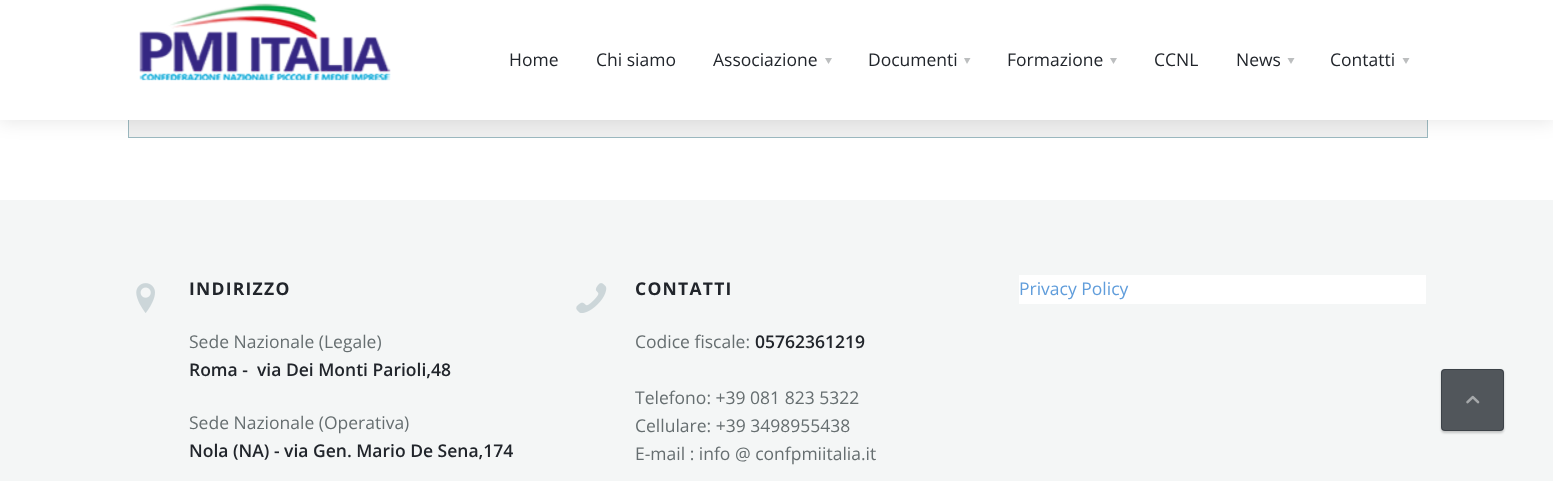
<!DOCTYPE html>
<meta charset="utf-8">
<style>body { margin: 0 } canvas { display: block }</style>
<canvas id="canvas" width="1553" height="481"></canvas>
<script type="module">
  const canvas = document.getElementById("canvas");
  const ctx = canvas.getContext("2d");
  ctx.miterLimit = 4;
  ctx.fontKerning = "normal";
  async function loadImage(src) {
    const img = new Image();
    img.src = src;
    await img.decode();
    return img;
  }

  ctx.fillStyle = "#ffffff";
  ctx.fillRect(0, 0, 1553, 481);
  ctx.fillStyle = "#efefef";
  ctx.fillRect(129, 120, 1298, 17);
  ctx.strokeStyle = "#9bb8bf";
  ctx.strokeRect(128.5, -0.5, 1299, 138);
  ctx.fillStyle = "rgba(0, 0, 0, 0.1)";
  ctx.filter = "blur(9.5px)";
  ctx.beginPath();
  ctx.rect(0, 1, 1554, 120);
  ctx.fill();
  ctx.filter = "none";
  ctx.fillStyle = "#ffffff";
  ctx.fillRect(0, 0, 1553, 120);
  ctx.drawImage(await loadImage("img1.png"), 139, 3, 252, 78);
  ctx.font = "17.5px Open Sans";
  ctx.fillStyle = "#21252b";
  ctx.fillText("Home", 509, 66);
  ctx.fillText("Chi siamo", 596, 66);
  ctx.fillText("Associazione", 713, 66);
  ctx.fillStyle = "#bcbebf";
  ctx.beginPath();
  ctx.moveTo(832, 58);
  ctx.lineTo(828.5, 64);
  ctx.lineTo(825, 58);
  ctx.closePath();
  ctx.fill();
  ctx.fillStyle = "#21252b";
  ctx.fillText("Documenti", 868, 66);
  ctx.fillStyle = "#bcbebf";
  ctx.beginPath();
  ctx.moveTo(970.5, 58);
  ctx.lineTo(967, 64);
  ctx.lineTo(964, 58);
  ctx.closePath();
  ctx.fill();
  ctx.fillStyle = "#21252b";
  ctx.fillText("Formazione", 1007, 66);
  ctx.fillStyle = "#bcbebf";
  ctx.beginPath();
  ctx.moveTo(1117, 58);
  ctx.lineTo(1113.5, 64);
  ctx.lineTo(1110, 58);
  ctx.closePath();
  ctx.fill();
  ctx.fillStyle = "#21252b";
  ctx.fillText("CCNL", 1154, 66);
  ctx.fillText("News", 1236, 66);
  ctx.fillStyle = "#bcbebf";
  ctx.beginPath();
  ctx.moveTo(1294.5, 58);
  ctx.lineTo(1291, 64);
  ctx.lineTo(1287.5, 58);
  ctx.closePath();
  ctx.fill();
  ctx.fillStyle = "#21252b";
  ctx.fillText("Contatti", 1330, 66);
  ctx.fillStyle = "#bcbebf";
  ctx.beginPath();
  ctx.moveTo(1409.5, 58);
  ctx.lineTo(1406, 64);
  ctx.lineTo(1402.5, 58);
  ctx.closePath();
  ctx.fill();
  ctx.fillStyle = "#f4f6f6";
  ctx.fillRect(0, 200, 1553, 281);
  ctx.drawImage(await loadImage("img2.png"), 136, 283, 19, 30);
  ctx.letterSpacing = "1.25px";
  ctx.font = "bold 17.5px Open Sans";
  ctx.fillStyle = "#21252b";
  ctx.fillText("INDIRIZZO", 189, 295);
  ctx.letterSpacing = "0px";
  ctx.font = "17.5px Open Sans";
  ctx.fillStyle = "#666e70";
  ctx.fillText("Sede Nazionale (Legale)", 189, 348);
  ctx.font = "600 17.5px Open Sans";
  ctx.fillStyle = "#21252b";
  ctx.fillText("Roma -  via Dei Monti Parioli,48", 189, 376);
  ctx.font = "17.5px Open Sans";
  ctx.fillStyle = "#666e70";
  ctx.fillText("Sede Nazionale (Operativa)", 189, 429);
  ctx.font = "600 17.5px Open Sans";
  ctx.fillStyle = "#21252b";
  ctx.fillText("Nola (NA) - via Gen. Mario De Sena,174", 189, 457);
  ctx.drawImage(await loadImage("img3.png"), 576, 283, 31, 30);
  ctx.letterSpacing = "1.25px";
  ctx.font = "bold 17.5px Open Sans";
  ctx.fillText("CONTATTI", 635, 295);
  ctx.letterSpacing = "0px";
  ctx.font = "17.5px Open Sans";
  ctx.fillStyle = "#666e70";
  ctx.fillText("Codice fiscale:", 635, 348);
  ctx.font = "600 17.5px Open Sans";
  ctx.fillStyle = "#21252b";
  ctx.fillText("05762361219", 755, 348);
  ctx.font = "17.5px Open Sans";
  ctx.fillStyle = "#666e70";
  ctx.fillText("Telefono: +39 081 823 5322", 635, 404);
  ctx.fillText("Cellulare: +39 3498955438", 635, 432);
  ctx.fillText("E-mail : info @ confpmiitalia.it", 635, 460);
  ctx.fillStyle = "#ffffff";
  ctx.fillRect(1019, 275, 407, 29);
  ctx.fillStyle = "#609ddb";
  ctx.fillText("Privacy Policy", 1019, 295);
  ctx.save();
  ctx.beginPath();
  ctx.moveTo(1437, 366);
  ctx.lineTo(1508, 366);
  ctx.lineTo(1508, 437);
  ctx.lineTo(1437, 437);
  ctx.closePath();
  ctx.moveTo(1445, 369);
  ctx.lineTo(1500, 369);
  ctx.bezierCurveTo(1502, 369, 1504, 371, 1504, 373);
  ctx.lineTo(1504, 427);
  ctx.bezierCurveTo(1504, 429, 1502, 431, 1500, 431);
  ctx.lineTo(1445, 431);
  ctx.bezierCurveTo(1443, 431, 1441, 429, 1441, 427);
  ctx.lineTo(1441, 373);
  ctx.bezierCurveTo(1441, 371, 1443, 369, 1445, 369);
  ctx.closePath();
  ctx.clip("evenodd");
  ctx.fillStyle = "rgba(0, 0, 0, 0.2)";
  ctx.filter = "blur(1px)";
  ctx.beginPath();
  ctx.roundRect(1441, 370, 63, 63, 4);
  ctx.fill();
  ctx.filter = "none";
  ctx.restore();
  ctx.fillStyle = "rgba(40, 46, 53, 0.8)";
  ctx.beginPath();
  ctx.roundRect(1441, 369, 63, 62, 4);
  ctx.fill();
  ctx.beginPath();
  ctx.roundRect(1441.5, 369.5, 62, 61, 3.5);
  ctx.strokeStyle = "rgba(40, 46, 53, 0.5)";
  ctx.stroke();
  ctx.drawImage(await loadImage("img4.png"), 1466, 395, 14, 9);
</script>
